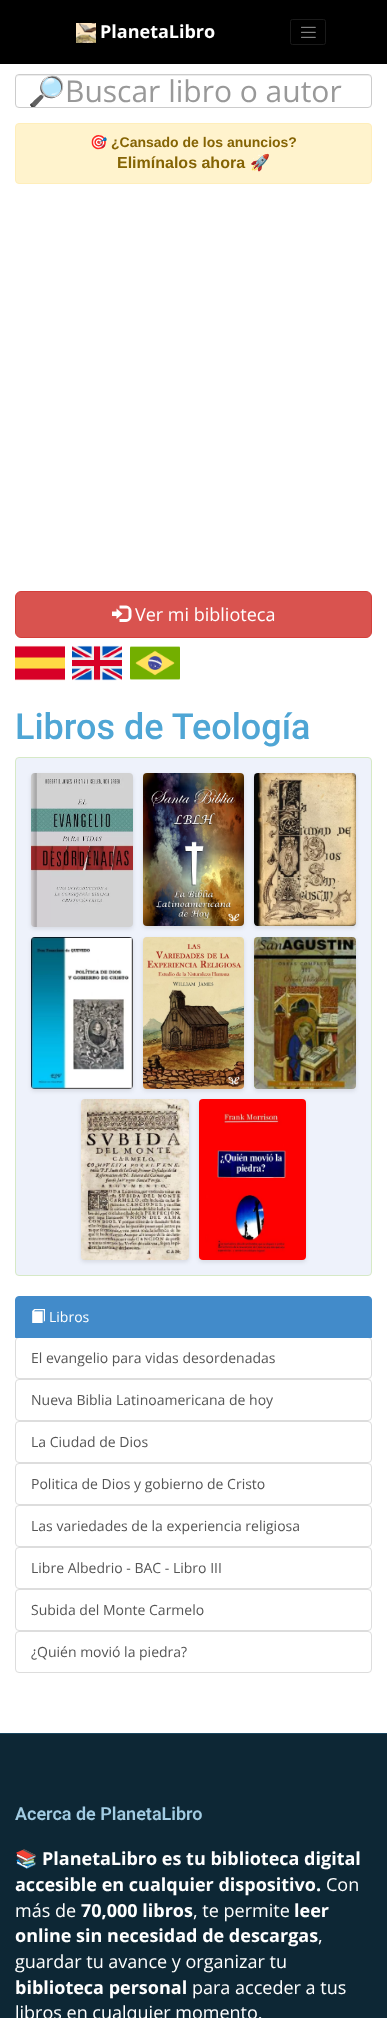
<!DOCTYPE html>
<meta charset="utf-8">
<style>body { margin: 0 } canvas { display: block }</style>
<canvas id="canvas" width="387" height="2018"></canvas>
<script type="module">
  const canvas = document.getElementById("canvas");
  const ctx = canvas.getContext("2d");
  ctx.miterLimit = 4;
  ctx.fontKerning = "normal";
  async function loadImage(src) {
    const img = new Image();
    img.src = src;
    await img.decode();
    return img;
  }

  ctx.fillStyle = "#ffffff";
  ctx.fillRect(0, 0, 387, 2018);
  ctx.fillStyle = "#000000";
  ctx.fillRect(0, 0, 387, 64);
  ctx.drawImage(await loadImage("img1.png"), 76, 23, 20, 20);
  ctx.font = "bold 18px Open Sans";
  ctx.fillStyle = "#ffffff";
  ctx.fillText("PlanetaLibro", 100, 38);
  ctx.beginPath();
  ctx.roundRect(290.5, 19.5, 35, 25, 2);
  ctx.strokeStyle = "#1a1a1a";
  ctx.stroke();
  ctx.drawImage(await loadImage("img2.png"), 301, 26, 15, 12);
  ctx.fillStyle = "#ececec";
  ctx.beginPath();
  ctx.moveTo(19, 76);
  ctx.lineTo(368, 76);
  ctx.bezierCurveTo(370, 76, 371, 77, 371, 79);
  ctx.bezierCurveTo(371, 77, 370, 75, 368, 75);
  ctx.lineTo(19, 75);
  ctx.lineTo(17, 76);
  ctx.lineTo(16, 79);
  ctx.bezierCurveTo(16, 77, 17, 76, 19, 76);
  ctx.closePath();
  ctx.fill();
  ctx.beginPath();
  ctx.roundRect(15.5, 74.5, 356, 33, 3.5);
  ctx.strokeStyle = "#cccccc";
  ctx.stroke();
  ctx.save();
  ctx.beginPath();
  ctx.roundRect(16, 75, 355, 32, 3);
  ctx.clip();
  ctx.font = "30px Noto Color Emoji";
  ctx.fillStyle = "#999999";
  ctx.fillText("🔎", 28, 102);
  ctx.restore();
  ctx.font = "30px Open Sans";
  ctx.fillStyle = "#999999";
  ctx.fillText("Buscar libro o autor", 65, 102);
  ctx.fillStyle = "#fff3cd";
  ctx.beginPath();
  ctx.roundRect(15.5, 123.5, 356, 60, 3.5);
  ctx.fill();
  ctx.strokeStyle = "#ffeeba";
  ctx.stroke();
  ctx.font = "bold 14px Noto Color Emoji";
  ctx.fillStyle = "#856404";
  ctx.fillText("🎯", 90, 147);
  ctx.font = "bold 14px Liberation Sans";
  ctx.fillText("¿Cansado de los anuncios?", 111, 147);
  ctx.font = "bold 16px Liberation Sans";
  ctx.fillText("Elimínalos ahora", 117, 168);
  ctx.font = "bold 16px Noto Color Emoji";
  ctx.fillText("🚀", 250, 168);
  ctx.fillStyle = "#d9534f";
  ctx.beginPath();
  ctx.roundRect(15.5, 591.5, 356, 46, 5.5);
  ctx.fill();
  ctx.strokeStyle = "#d43f3a";
  ctx.stroke();
  ctx.drawImage(await loadImage("img3.png"), 112, 605, 20, 17);
  ctx.font = "18px Open Sans";
  ctx.fillStyle = "#ffffff";
  ctx.fillText("Ver mi biblioteca", 135, 621);
  ctx.drawImage(await loadImage("img4.png"), 15, 645, 50, 36);
  ctx.drawImage(await loadImage("img5.png"), 72, 645, 50, 36);
  ctx.drawImage(await loadImage("img6.png"), 130, 646, 50, 34);
  ctx.font = "500 36px Roboto";
  ctx.fillStyle = "#4fa6d5";
  ctx.fillText("Libros de Teología", 15, 739);
  ctx.fillStyle = "#eef2fb";
  ctx.beginPath();
  ctx.roundRect(15.5, 757.5, 356, 518, 3.5);
  ctx.fill();
  ctx.strokeStyle = "#d6e9c6";
  ctx.stroke();
  ctx.fillStyle = "rgba(0, 0, 0, 0.1)";
  ctx.filter = "blur(2px)";
  ctx.beginPath();
  ctx.roundRect(31, 775, 102, 154, 4);
  ctx.fill();
  ctx.filter = "none";
  ctx.drawImage(await loadImage("img7.png"), 31, 773, 102, 154);
  ctx.filter = "blur(2px)";
  ctx.beginPath();
  ctx.roundRect(143, 775, 101, 153, 4);
  ctx.fill();
  ctx.filter = "none";
  ctx.drawImage(await loadImage("img8.png"), 143, 773, 101, 153);
  ctx.filter = "blur(2px)";
  ctx.beginPath();
  ctx.roundRect(254, 775, 102, 153, 4);
  ctx.fill();
  ctx.filter = "none";
  ctx.drawImage(await loadImage("img9.png"), 254, 773, 102, 153);
  ctx.filter = "blur(2px)";
  ctx.beginPath();
  ctx.roundRect(31, 939, 102, 152, 4);
  ctx.fill();
  ctx.filter = "none";
  ctx.drawImage(await loadImage("img10.png"), 31, 937, 102, 152);
  ctx.filter = "blur(2px)";
  ctx.beginPath();
  ctx.roundRect(143, 939, 101, 152, 4);
  ctx.fill();
  ctx.filter = "none";
  ctx.drawImage(await loadImage("img11.png"), 143, 937, 101, 152);
  ctx.filter = "blur(2px)";
  ctx.beginPath();
  ctx.roundRect(254, 939, 102, 152, 4);
  ctx.fill();
  ctx.filter = "none";
  ctx.drawImage(await loadImage("img12.png"), 254, 937, 102, 152);
  ctx.filter = "blur(2px)";
  ctx.beginPath();
  ctx.roundRect(81, 1101, 108, 161, 4);
  ctx.fill();
  ctx.filter = "none";
  ctx.drawImage(await loadImage("img13.png"), 81, 1099, 108, 161);
  ctx.filter = "blur(2px)";
  ctx.beginPath();
  ctx.roundRect(199, 1101, 107, 161, 4);
  ctx.fill();
  ctx.filter = "none";
  ctx.drawImage(await loadImage("img14.png"), 199, 1099, 107, 161);
  ctx.beginPath();
  ctx.roundRect(15.5, 1337.5, 356, 41, 3.5);
  ctx.strokeStyle = "#dddddd";
  ctx.stroke();
  ctx.fillStyle = "#428bca";
  ctx.beginPath();
  ctx.roundRect(15.5, 1296.5, 356, 41, [3.5, 3.5, 0, 0]);
  ctx.fill();
  ctx.strokeStyle = "#428bca";
  ctx.stroke();
  ctx.drawImage(await loadImage("img15.png"), 32, 1309, 13, 14);
  ctx.font = "14px Open Sans";
  ctx.fillStyle = "#ffffff";
  ctx.fillText("Libros", 49, 1322);
  ctx.fillStyle = "#555555";
  ctx.fillText("El evangelio para vidas desordenadas", 31, 1363);
  ctx.beginPath();
  ctx.roundRect(15.5, 1379.5, 356, 41, 3.5);
  ctx.strokeStyle = "#dddddd";
  ctx.stroke();
  ctx.fillText("Nueva Biblia Latinoamericana de hoy", 31, 1405);
  ctx.beginPath();
  ctx.roundRect(15.5, 1421.5, 356, 41, 3.5);
  ctx.stroke();
  ctx.fillText("La Ciudad de Dios", 31, 1447);
  ctx.beginPath();
  ctx.roundRect(15.5, 1463.5, 356, 41, 3.5);
  ctx.stroke();
  ctx.fillText("Politica de Dios y gobierno de Cristo", 31, 1489);
  ctx.beginPath();
  ctx.roundRect(15.5, 1505.5, 356, 41, 3.5);
  ctx.stroke();
  ctx.fillText("Las variedades de la experiencia religiosa", 31, 1531);
  ctx.beginPath();
  ctx.roundRect(15.5, 1547.5, 356, 41, 3.5);
  ctx.stroke();
  ctx.fillText("Libre Albedrio - BAC - Libro III", 31, 1573);
  ctx.beginPath();
  ctx.roundRect(15.5, 1589.5, 356, 41, 3.5);
  ctx.stroke();
  ctx.fillText("Subida del Monte Carmelo", 31, 1615);
  ctx.beginPath();
  ctx.roundRect(15.5, 1631.5, 356, 41, 3.5);
  ctx.stroke();
  ctx.fillText("¿Quién movió la piedra?", 31, 1657);
  ctx.fillStyle = "#0d2735";
  ctx.fillRect(0, 1734, 387, 284);
  ctx.fillStyle = "#17455e";
  ctx.fillRect(0, 1733, 387, 1);
  ctx.font = "600 18px Roboto";
  ctx.fillStyle = "#a2cce3";
  ctx.fillText("Acerca de PlanetaLibro", 15, 1820);
  ctx.font = "bold 18px Noto Color Emoji";
  ctx.fillStyle = "#ffffff";
  ctx.fillText("📚", 15, 1865);
  ctx.font = "bold 18px Open Sans";
  ctx.fillText("PlanetaLibro es tu biblioteca digital", 42, 1865);
  ctx.fillText("accesible en cualquier dispositivo.", 15, 1891);
  ctx.font = "18px Open Sans";
  ctx.fillText("Con", 326, 1891);
  ctx.fillText("más de", 15, 1917);
  ctx.font = "bold 18px Open Sans";
  ctx.fillText("70,000 libros", 81, 1917);
  ctx.font = "18px Open Sans";
  ctx.fillText(", te permite", 193, 1917);
  ctx.font = "bold 18px Open Sans";
  ctx.fillText("leer", 294, 1917);
  ctx.fillText("online sin necesidad de descargas", 15, 1942);
  ctx.font = "18px Open Sans";
  ctx.fillText(",", 318, 1942);
  ctx.fillText("guardar tu avance y organizar tu", 15, 1968);
  ctx.font = "bold 18px Open Sans";
  ctx.fillText("biblioteca personal", 15, 1994);
  ctx.font = "18px Open Sans";
  ctx.fillText("para acceder a tus", 192, 1994);
  ctx.fillText("libros en cualquier momento.", 15, 2019);
</script>
